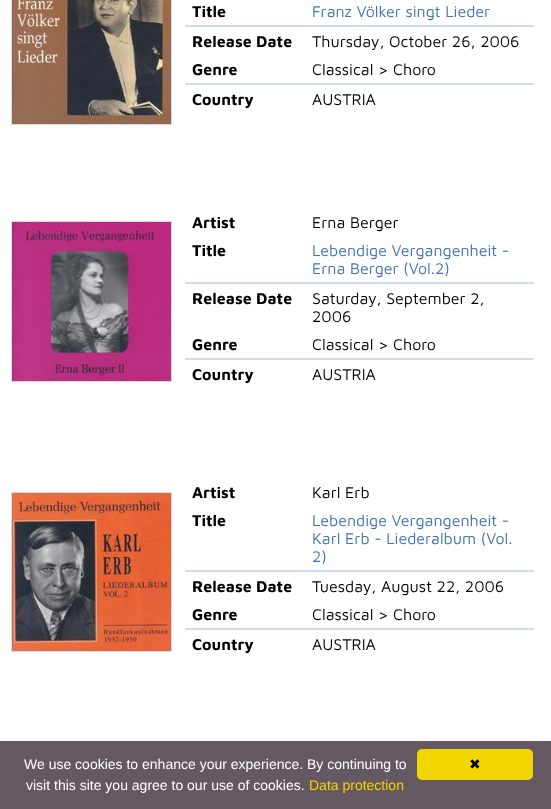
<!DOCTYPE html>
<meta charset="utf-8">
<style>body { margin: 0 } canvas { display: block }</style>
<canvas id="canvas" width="551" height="809"></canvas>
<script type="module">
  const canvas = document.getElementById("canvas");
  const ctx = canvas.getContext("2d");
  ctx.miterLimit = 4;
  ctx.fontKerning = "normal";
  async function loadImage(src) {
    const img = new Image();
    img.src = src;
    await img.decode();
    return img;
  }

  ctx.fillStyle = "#ffffff";
  ctx.fillRect(0, 0, 551, 809);
  ctx.strokeStyle = "#d0dcec";
  ctx.strokeRect(11.5, -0.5, 160, 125);
  ctx.drawImage(await loadImage("img1.png"), 12, 0, 159, 124);
  ctx.font = "bold 16px Maven Pro";
  ctx.fillStyle = "#000000";
  ctx.fillText("Title", 192, 17);
  ctx.font = "16px Maven Pro";
  ctx.fillStyle = "#4373b3";
  ctx.fillText("Franz Völker singt Lieder", 312, 17);
  ctx.fillStyle = "#d0dcec";
  ctx.fillRect(185, 25, 349, 2);
  ctx.font = "bold 16px Maven Pro";
  ctx.fillStyle = "#000000";
  ctx.fillText("Release Date", 192, 47);
  ctx.font = "16px Maven Pro";
  ctx.fillText("Thursday, October 26, 2006", 312, 47);
  ctx.font = "bold 16px Maven Pro";
  ctx.fillText("Genre", 192, 75);
  ctx.font = "16px Maven Pro";
  ctx.fillText("Classical > Choro", 312, 75);
  ctx.fillStyle = "#d0dcec";
  ctx.fillRect(185, 83, 349, 2);
  ctx.font = "bold 16px Maven Pro";
  ctx.fillStyle = "#000000";
  ctx.fillText("Country", 192, 105);
  ctx.font = "16px Maven Pro";
  ctx.fillText("AUSTRIA", 312, 105);
  ctx.strokeRect(11.5, 221.5, 160, 160);
  ctx.drawImage(await loadImage("img2.png"), 12, 222, 159, 159);
  ctx.font = "bold 16px Maven Pro";
  ctx.fillText("Artist", 192, 228);
  ctx.font = "16px Maven Pro";
  ctx.fillText("Erna Berger", 312, 228);
  ctx.font = "bold 16px Maven Pro";
  ctx.fillText("Title", 192, 256);
  ctx.font = "16px Maven Pro";
  ctx.fillStyle = "#4373b3";
  ctx.fillText("Lebendige Vergangenheit -", 312, 256);
  ctx.fillText("Erna Berger (Vol.2)", 312, 274);
  ctx.fillStyle = "#d0dcec";
  ctx.fillRect(185, 282, 349, 2);
  ctx.font = "bold 16px Maven Pro";
  ctx.fillStyle = "#000000";
  ctx.fillText("Release Date", 192, 304);
  ctx.font = "16px Maven Pro";
  ctx.fillText("Saturday, September 2,", 312, 304);
  ctx.fillText("2006", 312, 322);
  ctx.font = "bold 16px Maven Pro";
  ctx.fillText("Genre", 192, 350);
  ctx.font = "16px Maven Pro";
  ctx.fillText("Classical > Choro", 312, 350);
  ctx.fillStyle = "#d0dcec";
  ctx.fillRect(185, 358, 349, 2);
  ctx.font = "bold 16px Maven Pro";
  ctx.fillStyle = "#000000";
  ctx.fillText("Country", 192, 380);
  ctx.font = "16px Maven Pro";
  ctx.fillText("AUSTRIA", 312, 380);
  ctx.strokeRect(11.5, 492.5, 160, 159);
  ctx.drawImage(await loadImage("img3.png"), 12, 493, 159, 158);
  ctx.font = "bold 16px Maven Pro";
  ctx.fillText("Artist", 192, 498);
  ctx.font = "16px Maven Pro";
  ctx.fillText("Karl Erb", 312, 498);
  ctx.font = "bold 16px Maven Pro";
  ctx.fillText("Title", 192, 526);
  ctx.font = "16px Maven Pro";
  ctx.fillStyle = "#4373b3";
  ctx.fillText("Lebendige Vergangenheit -", 312, 526);
  ctx.fillText("Karl Erb - Liederalbum (Vol.", 312, 544);
  ctx.fillText("2)", 312, 562);
  ctx.fillStyle = "#d0dcec";
  ctx.fillRect(185, 570, 349, 2);
  ctx.font = "bold 16px Maven Pro";
  ctx.fillStyle = "#000000";
  ctx.fillText("Release Date", 192, 592);
  ctx.font = "16px Maven Pro";
  ctx.fillText("Tuesday, August 22, 2006", 312, 592);
  ctx.font = "bold 16px Maven Pro";
  ctx.fillText("Genre", 192, 620);
  ctx.font = "16px Maven Pro";
  ctx.fillText("Classical > Choro", 312, 620);
  ctx.fillStyle = "#d0dcec";
  ctx.fillRect(185, 628, 349, 2);
  ctx.font = "bold 16px Maven Pro";
  ctx.fillStyle = "#000000";
  ctx.fillText("Country", 192, 650);
  ctx.font = "16px Maven Pro";
  ctx.fillText("AUSTRIA", 312, 650);
  ctx.fillStyle = "#645862";
  ctx.fillRect(0, 741, 551, 68);
  ctx.font = "14px Liberation Sans";
  ctx.fillStyle = "#ffffff";
  ctx.fillText("We use cookies to enhance your experience. By continuing to", 24, 769);
  ctx.fillText("visit this site you agree to our use of cookies.", 26, 790);
  ctx.fillStyle = "#f1d600";
  ctx.fillText("Data protection", 309, 790);
  ctx.beginPath();
  ctx.roundRect(417, 749, 116, 31, 5);
  ctx.fill();
  ctx.font = "14px DejaVu Sans";
  ctx.fillStyle = "#000000";
  ctx.fillText("✖", 469, 769);
</script>
